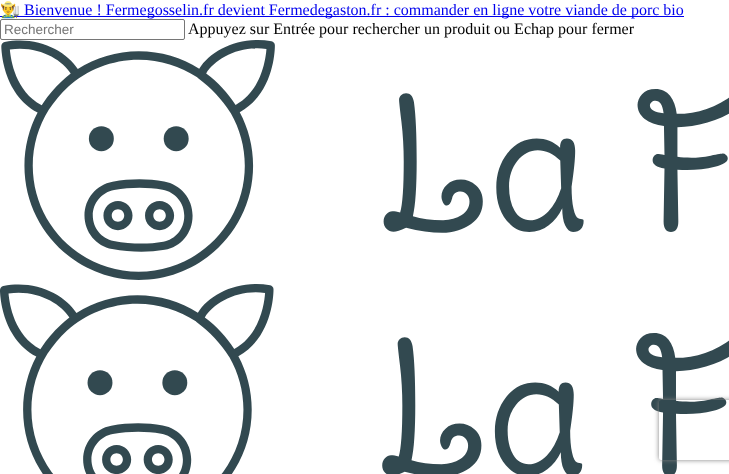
<!DOCTYPE html>
<meta charset="utf-8">
<style>body { margin: 0 } canvas { display: block }</style>
<canvas id="canvas" width="729" height="474"></canvas>
<script type="module">
  const canvas = document.getElementById("canvas");
  const ctx = canvas.getContext("2d");
  ctx.miterLimit = 4;
  ctx.fontKerning = "normal";
  async function loadImage(src) {
    const img = new Image();
    img.src = src;
    await img.decode();
    return img;
  }

  ctx.fillStyle = "#ffffff";
  ctx.fillRect(0, 0, 729, 474);
  ctx.fillStyle = "#0000ee";
  ctx.fillRect(0, 16, 684, 1);
  ctx.font = "16px Noto Color Emoji";
  ctx.fillText("👨‍🌾", 0, 15);
  ctx.font = "16px Liberation Serif";
  ctx.fillText("Bienvenue ! Fermegosselin.fr devient Fermedegaston.fr : commander en ligne votre viande de porc bio", 24, 15);
  ctx.beginPath();
  ctx.roundRect(0.5, 19.5, 184, 20, 1.5);
  ctx.strokeStyle = "#767676";
  ctx.stroke();
  ctx.font = "13.5px Liberation Sans";
  ctx.fillStyle = "#757575";
  ctx.fillText("Rechercher", 4, 34);
  ctx.font = "16px Liberation Serif";
  ctx.fillStyle = "#000000";
  ctx.fillText("Appuyez sur Entrée pour rechercher un produit ou Echap pour fermer", 188, 34);
  ctx.drawImage(await loadImage("img1.png"), 1, 40, 728, 240);
  ctx.drawImage(await loadImage("img2.png"), 0, 284, 729, 190);
  ctx.save();
  ctx.beginPath();
  ctx.moveTo(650, 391);
  ctx.lineTo(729, 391);
  ctx.lineTo(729, 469);
  ctx.lineTo(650, 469);
  ctx.closePath();
  ctx.moveTo(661, 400);
  ctx.lineTo(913, 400);
  ctx.bezierCurveTo(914, 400, 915, 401, 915, 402);
  ctx.lineTo(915, 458);
  ctx.bezierCurveTo(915, 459, 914, 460, 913, 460);
  ctx.lineTo(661, 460);
  ctx.bezierCurveTo(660, 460, 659, 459, 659, 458);
  ctx.lineTo(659, 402);
  ctx.bezierCurveTo(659, 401, 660, 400, 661, 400);
  ctx.closePath();
  ctx.clip("evenodd");
  ctx.fillStyle = "#808080";
  ctx.filter = "blur(2.5px)";
  ctx.beginPath();
  ctx.roundRect(659, 400, 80, 60, 2);
  ctx.fill();
  ctx.filter = "none";
  ctx.restore();
</script>
